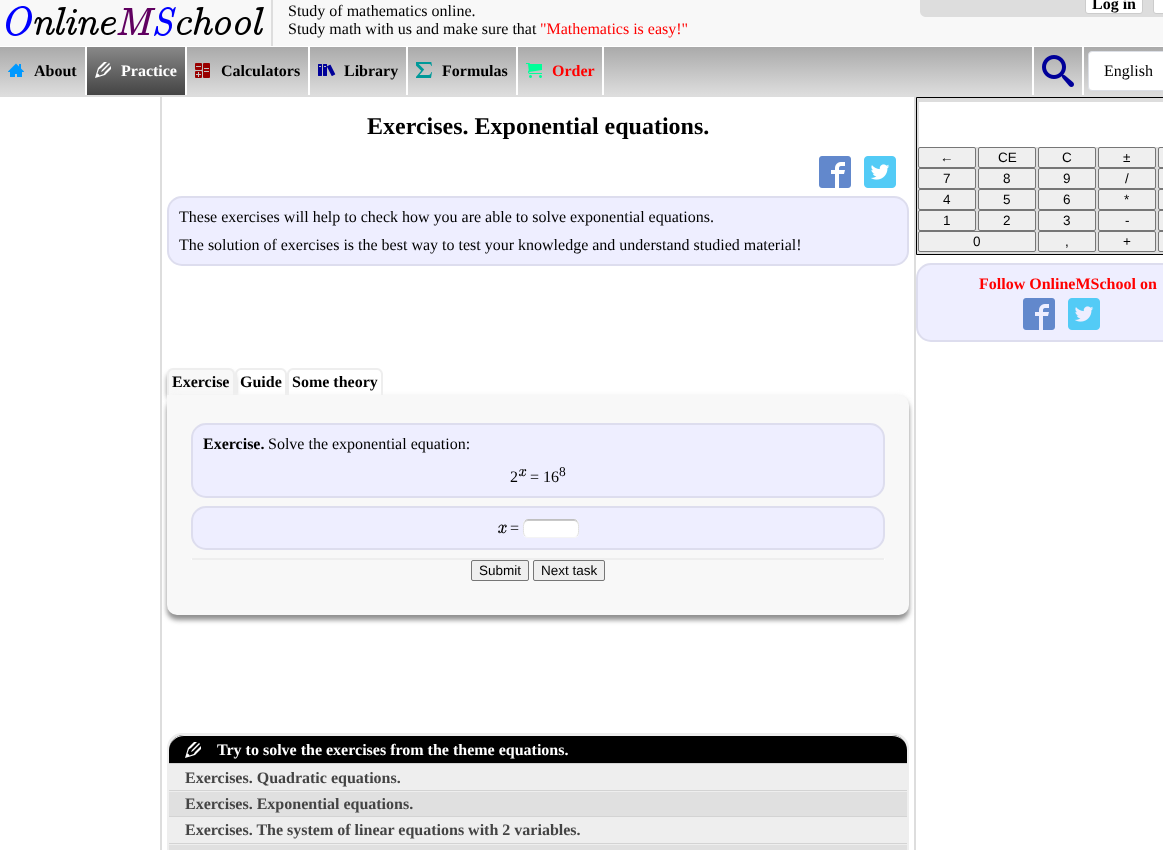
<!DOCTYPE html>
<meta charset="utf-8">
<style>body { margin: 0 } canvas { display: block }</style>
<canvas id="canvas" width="1163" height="850"></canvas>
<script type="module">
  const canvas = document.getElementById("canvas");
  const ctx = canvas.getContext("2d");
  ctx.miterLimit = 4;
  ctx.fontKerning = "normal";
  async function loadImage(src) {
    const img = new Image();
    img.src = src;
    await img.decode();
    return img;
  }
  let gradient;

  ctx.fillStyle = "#f8f8f8";
  ctx.fillRect(0, 0, 1163, 850);
  ctx.fillStyle = "#ffffff";
  ctx.fillRect(0, 46, 1163, 1);
  ctx.fillStyle = "#dddddd";
  ctx.fillRect(271, 0, 2, 46);
  ctx.drawImage(await loadImage("img1.png"), 6, 6, 258, 30);
  ctx.font = "16px Liberation Serif";
  ctx.fillStyle = "#000000";
  ctx.fillText("Study of mathematics online.", 288, 16);
  ctx.fillText("Study math with us and make sure that", 288, 34);
  ctx.fillStyle = "#ff0000";
  ctx.fillText("\"Mathematics is easy!\"", 540, 34);
  ctx.fillStyle = "#dddddd";
  ctx.beginPath();
  ctx.moveTo(920, -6);
  ctx.lineTo(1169, -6);
  ctx.lineTo(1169, 11);
  ctx.bezierCurveTo(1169, 14.5, 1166.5, 17, 1163, 17);
  ctx.lineTo(926, 17);
  ctx.bezierCurveTo(922.5, 17, 920, 14.5, 920, 11);
  ctx.closePath();
  ctx.fill();
  ctx.fillStyle = "#ffffff";
  ctx.beginPath();
  ctx.roundRect(1085.5, -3.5, 57, 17, 2.5);
  ctx.fill();
  ctx.strokeStyle = "#cccccc";
  ctx.stroke();
  ctx.font = "bold 16px Liberation Serif";
  ctx.fillStyle = "#000000";
  ctx.fillText("Log in", 1092, 9);
  ctx.fillStyle = "#ffffff";
  ctx.beginPath();
  ctx.roundRect(1153.5, -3.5, 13, 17, 2.5);
  ctx.fill();
  ctx.stroke();
  gradient = ctx.createLinearGradient(0, 95, 0, 47);
  gradient.addColorStop(0, "#dddddd");
  gradient.addColorStop(1, "#aaaaaa");
  ctx.fillStyle = gradient;
  ctx.fillRect(0, 47, 1163, 48);
  ctx.fillStyle = "#ffffff";
  ctx.fillRect(85, 47, 2, 48);
  ctx.drawImage(await loadImage("img2.png"), 8, 63, 16, 14);
  ctx.fillStyle = "#000000";
  ctx.fillText("About", 34, 76);
  gradient = ctx.createLinearGradient(87, 95, 87, 47);
  gradient.addColorStop(0, "#444444");
  gradient.addColorStop(1, "#888888");
  ctx.fillStyle = gradient;
  ctx.fillRect(87, 47, 98, 48);
  ctx.fillStyle = "#ffffff";
  ctx.fillRect(185, 47, 2, 48);
  ctx.drawImage(await loadImage("img3.png"), 95, 62, 16, 16);
  ctx.fillText("Practice", 121, 76);
  ctx.fillRect(308, 47, 2, 48);
  ctx.drawImage(await loadImage("img4.png"), 195, 63, 15, 15);
  ctx.fillStyle = "#000000";
  ctx.fillText("Calculators", 221, 76);
  ctx.fillStyle = "#ffffff";
  ctx.fillRect(406, 47, 2, 48);
  ctx.drawImage(await loadImage("img5.png"), 318, 64, 18, 12);
  ctx.fillStyle = "#000000";
  ctx.fillText("Library", 344, 76);
  ctx.fillStyle = "#ffffff";
  ctx.fillRect(516, 47, 2, 48);
  ctx.drawImage(await loadImage("img6.png"), 416, 62, 16, 16);
  ctx.fillStyle = "#000000";
  ctx.fillText("Formulas", 442, 76);
  ctx.fillStyle = "#ffffff";
  ctx.fillRect(602, 47, 2, 48);
  ctx.drawImage(await loadImage("img7.png"), 526, 63, 16, 15);
  ctx.fillStyle = "#ff0000";
  ctx.fillText("Order", 552, 76);
  ctx.fillStyle = "#ffffff";
  ctx.fillRect(1082, 47, 2, 48);
  ctx.fillRect(1032, 47, 2, 48);
  ctx.drawImage(await loadImage("img8.png"), 1042, 55, 32, 32);
  ctx.beginPath();
  ctx.roundRect(1088.5, 51.5, 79, 39, 3.5);
  ctx.fill();
  ctx.strokeStyle = "#dcdfe6";
  ctx.stroke();
  ctx.font = "16px Liberation Serif";
  ctx.fillStyle = "#000000";
  ctx.fillText("English", 1104, 76);
  ctx.fillStyle = "#ffffff";
  ctx.fillRect(0, 97, 160, 753);
  ctx.fillStyle = "#dddddd";
  ctx.fillRect(0, 95, 1163, 2);
  ctx.fillRect(160, 95, 2, 755);
  ctx.fillStyle = "#ffffff";
  ctx.fillRect(162, 97, 752, 753);
  ctx.fillStyle = "#dddddd";
  ctx.fillRect(914, 95, 2, 755);
  ctx.font = "bold 24px Liberation Serif";
  ctx.fillStyle = "#000000";
  ctx.fillText("Exercises. Exponential equations.", 367, 134);
  ctx.drawImage(await loadImage("img9.png"), 819, 156, 32, 32);
  ctx.drawImage(await loadImage("img10.png"), 864, 156, 32, 32);
  ctx.fillStyle = "#eeeeff";
  ctx.beginPath();
  ctx.roundRect(168, 197, 740, 68, 14);
  ctx.fill();
  ctx.strokeStyle = "#ddddee";
  ctx.lineWidth = 2;
  ctx.stroke();
  ctx.font = "16px Liberation Serif";
  ctx.fillStyle = "#000000";
  ctx.fillText("These exercises will help to check how you are able to solve exponential equations.", 179, 222);
  ctx.fillText("The solution of exercises is the best way to test your knowledge and understand studied material!", 179, 250);
  ctx.fillStyle = "#909090";
  ctx.filter = "blur(2.5px)";
  ctx.beginPath();
  ctx.roundRect(167, 373, 68, 27, 6);
  ctx.fill();
  ctx.filter = "none";
  ctx.fillStyle = "#f8f8f8";
  ctx.beginPath();
  ctx.roundRect(167, 368, 68, 27, [6, 6, 0, 0]);
  ctx.fill();
  ctx.fillStyle = "#eeeeee";
  ctx.beginPath();
  ctx.moveTo(173, 368);
  ctx.lineTo(229, 368);
  ctx.bezierCurveTo(232, 368, 235, 371, 235, 374);
  ctx.lineTo(235, 395);
  ctx.lineTo(167, 395);
  ctx.lineTo(167, 374);
  ctx.bezierCurveTo(167, 371, 170, 368, 173, 368);
  ctx.closePath();
  ctx.moveTo(173, 370);
  ctx.lineTo(229, 370);
  ctx.bezierCurveTo(231, 370, 233, 372, 233, 374);
  ctx.lineTo(233, 395);
  ctx.lineTo(169, 395);
  ctx.lineTo(169, 374);
  ctx.bezierCurveTo(169, 372, 171, 370, 173, 370);
  ctx.closePath();
  ctx.fill("evenodd");
  ctx.beginPath();
  ctx.moveTo(241, 368);
  ctx.lineTo(281, 368);
  ctx.bezierCurveTo(284, 368, 287, 371, 287, 374);
  ctx.lineTo(287, 395);
  ctx.lineTo(235, 395);
  ctx.lineTo(235, 374);
  ctx.bezierCurveTo(235, 371, 238, 368, 241, 368);
  ctx.closePath();
  ctx.moveTo(241, 370);
  ctx.lineTo(281, 370);
  ctx.bezierCurveTo(283, 370, 285, 372, 285, 374);
  ctx.lineTo(285, 395);
  ctx.lineTo(237, 395);
  ctx.lineTo(237, 374);
  ctx.bezierCurveTo(237, 372, 239, 370, 241, 370);
  ctx.closePath();
  ctx.fill("evenodd");
  ctx.beginPath();
  ctx.moveTo(293, 368);
  ctx.lineTo(377, 368);
  ctx.bezierCurveTo(380, 368, 383, 371, 383, 374);
  ctx.lineTo(383, 395);
  ctx.lineTo(287, 395);
  ctx.lineTo(287, 374);
  ctx.bezierCurveTo(287, 371, 290, 368, 293, 368);
  ctx.closePath();
  ctx.moveTo(293, 370);
  ctx.lineTo(377, 370);
  ctx.bezierCurveTo(379, 370, 381, 372, 381, 374);
  ctx.lineTo(381, 395);
  ctx.lineTo(289, 395);
  ctx.lineTo(289, 374);
  ctx.bezierCurveTo(289, 372, 291, 370, 293, 370);
  ctx.closePath();
  ctx.fill("evenodd");
  ctx.fillStyle = "#f2f2f2";
  ctx.filter = "blur(2.5px)";
  ctx.beginPath();
  ctx.roundRect(167, 395, 742, 220, 10);
  ctx.fill();
  ctx.filter = "none";
  ctx.font = "bold 16px Liberation Serif";
  ctx.fillStyle = "#000000";
  ctx.fillText("Exercise", 172, 387);
  ctx.fillText("Guide", 240, 387);
  ctx.fillText("Some theory", 292, 387);
  ctx.fillStyle = "#909090";
  ctx.filter = "blur(2.5px)";
  ctx.beginPath();
  ctx.roundRect(167, 400, 742, 220, 10);
  ctx.fill();
  ctx.filter = "none";
  ctx.fillStyle = "#f8f8f8";
  ctx.beginPath();
  ctx.roundRect(167, 395, 742, 220, [0, 10, 10, 10]);
  ctx.fill();
  ctx.fillStyle = "#eeeeff";
  ctx.beginPath();
  ctx.roundRect(192, 424, 692, 73, 14);
  ctx.fill();
  ctx.stroke();
  ctx.fillStyle = "#000000";
  ctx.fillText("Exercise.", 203, 449);
  ctx.font = "16px Liberation Serif";
  ctx.fillText("Solve the exponential equation:", 268, 449);
  ctx.fillText("2", 510, 482);
  ctx.font = "italic 16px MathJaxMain";
  ctx.fillText("x", 518, 476);
  ctx.font = "16px Liberation Serif";
  ctx.fillText("= 16", 530, 482);
  ctx.font = "13.5px Liberation Serif";
  ctx.fillText("8", 559, 476);
  ctx.fillStyle = "#eeeeff";
  ctx.beginPath();
  ctx.roundRect(192, 507, 692, 42, 14);
  ctx.fill();
  ctx.stroke();
  ctx.font = "italic 19px MathJaxMain";
  ctx.fillStyle = "#000000";
  ctx.fillText("x", 497, 533);
  ctx.font = "16px Liberation Serif";
  ctx.fillText("=", 510, 533);
  ctx.fillStyle = "#ffffff";
  ctx.beginPath();
  ctx.roundRect(523, 519, 56, 19, 5);
  ctx.fill();
  ctx.fillStyle = "#c9c9c9";
  ctx.beginPath();
  ctx.moveTo(528, 521);
  ctx.lineTo(574, 521);
  ctx.bezierCurveTo(576, 521, 578, 523, 578, 525);
  ctx.bezierCurveTo(578, 518, 571, 520, 566, 520);
  ctx.lineTo(536, 520);
  ctx.bezierCurveTo(531, 520, 524, 518, 524, 525);
  ctx.bezierCurveTo(524, 523, 526, 521, 528, 521);
  ctx.closePath();
  ctx.fill();
  ctx.beginPath();
  ctx.moveTo(525, 521);
  ctx.bezierCurveTo(525.5, 520, 527, 519.5, 528, 519.5);
  ctx.lineTo(574, 519.5);
  ctx.bezierCurveTo(575, 519.5, 576.5, 520, 577, 521);
  ctx.strokeStyle = "#c0c0c0";
  ctx.lineWidth = 1;
  ctx.stroke();
  ctx.beginPath();
  ctx.moveTo(577, 521);
  ctx.bezierCurveTo(579, 523, 578.5, 526, 578.5, 528.5);
  ctx.bezierCurveTo(578.5, 531, 579, 534, 577, 536);
  ctx.strokeStyle = "#e0e0e0";
  ctx.stroke();
  ctx.beginPath();
  ctx.moveTo(577, 536);
  ctx.bezierCurveTo(576.5, 537, 575, 537.5, 574, 537.5);
  ctx.lineTo(528, 537.5);
  ctx.bezierCurveTo(527, 537.5, 525.5, 537, 525, 536);
  ctx.strokeStyle = "#f4f4f4";
  ctx.stroke();
  ctx.beginPath();
  ctx.moveTo(525, 536);
  ctx.bezierCurveTo(523, 534, 523.5, 531, 523.5, 528.5);
  ctx.bezierCurveTo(523.5, 526, 523, 523, 525, 521);
  ctx.strokeStyle = "#e0e0e0";
  ctx.stroke();
  ctx.fillStyle = "#ffffff";
  ctx.beginPath();
  ctx.roundRect(191, 558, 694, 2, [2, 2, 0, 0]);
  ctx.fill();
  ctx.fillStyle = "#eeeeee";
  ctx.fillRect(192, 558, 692, 2);
  ctx.fillStyle = "#efefef";
  ctx.beginPath();
  ctx.roundRect(471.5, 560.5, 57, 20, 1.5);
  ctx.fill();
  ctx.strokeStyle = "#767676";
  ctx.stroke();
  ctx.font = "13.5px Liberation Sans";
  ctx.fillStyle = "#000000";
  ctx.fillText("Submit", 479, 575);
  ctx.fillStyle = "#efefef";
  ctx.beginPath();
  ctx.roundRect(533.5, 560.5, 71, 20, 1.5);
  ctx.fill();
  ctx.stroke();
  ctx.fillStyle = "#000000";
  ctx.fillText("Next task", 541, 575);
  ctx.fillStyle = "#eeeeee";
  ctx.beginPath();
  ctx.roundRect(168, 734, 740, 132, 14);
  ctx.fill();
  ctx.strokeStyle = "#eeeeee";
  ctx.lineWidth = 2;
  ctx.stroke();
  ctx.fillStyle = "#000000";
  ctx.beginPath();
  ctx.roundRect(169, 735, 738, 29, [15, 15, 0, 0]);
  ctx.fill();
  ctx.fillStyle = "#f0f0f0";
  ctx.beginPath();
  ctx.moveTo(184, 735);
  ctx.bezierCurveTo(176, 735, 170, 741, 169, 749);
  ctx.bezierCurveTo(170, 742, 176, 736, 184, 736);
  ctx.lineTo(892, 736);
  ctx.bezierCurveTo(900, 736, 906, 741, 907, 749);
  ctx.bezierCurveTo(906, 741, 900, 735, 892, 735);
  ctx.closePath();
  ctx.fill();
  ctx.fillStyle = "#d3d3d3";
  ctx.fillRect(169, 763, 738, 1);
  ctx.drawImage(await loadImage("img11.png"), 185, 742, 16, 16);
  ctx.font = "bold 16px Liberation Serif";
  ctx.fillStyle = "#ffffff";
  ctx.fillText("Try to solve the exercises from the theme equations.", 217, 755);
  ctx.fillStyle = "#d3d3d3";
  ctx.fillRect(169, 790, 738, 1);
  ctx.fillStyle = "#444444";
  ctx.fillText("Exercises. Quadratic equations.", 185, 783);
  ctx.fillStyle = "#e0e0e0";
  ctx.fillRect(169, 792, 738, 24);
  ctx.fillStyle = "#d3d3d3";
  ctx.fillRect(169, 816, 738, 1);
  ctx.fillStyle = "#444444";
  ctx.fillText("Exercises. Exponential equations.", 185, 809);
  ctx.fillStyle = "#d3d3d3";
  ctx.fillRect(169, 843, 738, 1);
  ctx.fillStyle = "#444444";
  ctx.fillText("Exercises. The system of linear equations with 2 variables.", 185, 835);
  ctx.fillStyle = "#e0e0e0";
  ctx.fillRect(169, 845, 738, 5);
  ctx.fillStyle = "#ffffff";
  ctx.fillRect(916, 255, 247, 595);
  ctx.fillStyle = "#dddddd";
  ctx.beginPath();
  ctx.rect(916.5, 97.5, 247, 157);
  ctx.fill();
  ctx.strokeStyle = "#000000";
  ctx.lineWidth = 1;
  ctx.stroke();
  ctx.fillStyle = "#ffffff";
  ctx.fillRect(919, 102, 244, 45);
  ctx.fillStyle = "#efefef";
  ctx.beginPath();
  ctx.roundRect(918.5, 147.5, 57, 20, 1.5);
  ctx.fill();
  ctx.strokeStyle = "#767676";
  ctx.stroke();
  ctx.font = "13.5px Liberation Sans";
  ctx.fillStyle = "#000000";
  ctx.fillText("←", 940, 162);
  ctx.fillStyle = "#efefef";
  ctx.beginPath();
  ctx.roundRect(978.5, 147.5, 57, 20, 1.5);
  ctx.fill();
  ctx.stroke();
  ctx.fillStyle = "#000000";
  ctx.fillText("CE", 998, 162);
  ctx.fillStyle = "#efefef";
  ctx.beginPath();
  ctx.roundRect(1038.5, 147.5, 57, 20, 1.5);
  ctx.fill();
  ctx.stroke();
  ctx.fillStyle = "#000000";
  ctx.fillText("C", 1062, 162);
  ctx.fillStyle = "#efefef";
  ctx.beginPath();
  ctx.roundRect(1098.5, 147.5, 57, 20, 1.5);
  ctx.fill();
  ctx.stroke();
  ctx.fillStyle = "#000000";
  ctx.fillText("±", 1123, 162);
  ctx.fillStyle = "#efefef";
  ctx.beginPath();
  ctx.roundRect(1158.5, 147.5, 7, 20, 1.5);
  ctx.fill();
  ctx.stroke();
  ctx.beginPath();
  ctx.roundRect(918.5, 168.5, 57, 20, 1.5);
  ctx.fill();
  ctx.stroke();
  ctx.fillStyle = "#000000";
  ctx.fillText("7", 943, 183);
  ctx.fillStyle = "#efefef";
  ctx.beginPath();
  ctx.roundRect(978.5, 168.5, 57, 20, 1.5);
  ctx.fill();
  ctx.stroke();
  ctx.fillStyle = "#000000";
  ctx.fillText("8", 1003, 183);
  ctx.fillStyle = "#efefef";
  ctx.beginPath();
  ctx.roundRect(1038.5, 168.5, 57, 20, 1.5);
  ctx.fill();
  ctx.stroke();
  ctx.fillStyle = "#000000";
  ctx.fillText("9", 1063, 183);
  ctx.fillStyle = "#efefef";
  ctx.beginPath();
  ctx.roundRect(1098.5, 168.5, 57, 20, 1.5);
  ctx.fill();
  ctx.stroke();
  ctx.fillStyle = "#000000";
  ctx.fillText("/", 1125, 183);
  ctx.fillStyle = "#efefef";
  ctx.beginPath();
  ctx.roundRect(1158.5, 168.5, 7, 20, 1.5);
  ctx.fill();
  ctx.stroke();
  ctx.beginPath();
  ctx.roundRect(918.5, 189.5, 57, 20, 1.5);
  ctx.fill();
  ctx.stroke();
  ctx.fillStyle = "#000000";
  ctx.fillText("4", 943, 204);
  ctx.fillStyle = "#efefef";
  ctx.beginPath();
  ctx.roundRect(978.5, 189.5, 57, 20, 1.5);
  ctx.fill();
  ctx.stroke();
  ctx.fillStyle = "#000000";
  ctx.fillText("5", 1003, 204);
  ctx.fillStyle = "#efefef";
  ctx.beginPath();
  ctx.roundRect(1038.5, 189.5, 57, 20, 1.5);
  ctx.fill();
  ctx.stroke();
  ctx.fillStyle = "#000000";
  ctx.fillText("6", 1063, 204);
  ctx.fillStyle = "#efefef";
  ctx.beginPath();
  ctx.roundRect(1098.5, 189.5, 57, 20, 1.5);
  ctx.fill();
  ctx.stroke();
  ctx.fillStyle = "#000000";
  ctx.fillText("*", 1124, 204);
  ctx.fillStyle = "#efefef";
  ctx.beginPath();
  ctx.roundRect(1158.5, 189.5, 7, 20, 1.5);
  ctx.fill();
  ctx.stroke();
  ctx.beginPath();
  ctx.roundRect(918.5, 210.5, 57, 20, 1.5);
  ctx.fill();
  ctx.stroke();
  ctx.fillStyle = "#000000";
  ctx.fillText("1", 943, 225);
  ctx.fillStyle = "#efefef";
  ctx.beginPath();
  ctx.roundRect(978.5, 210.5, 57, 20, 1.5);
  ctx.fill();
  ctx.stroke();
  ctx.fillStyle = "#000000";
  ctx.fillText("2", 1003, 225);
  ctx.fillStyle = "#efefef";
  ctx.beginPath();
  ctx.roundRect(1038.5, 210.5, 57, 20, 1.5);
  ctx.fill();
  ctx.stroke();
  ctx.fillStyle = "#000000";
  ctx.fillText("3", 1063, 225);
  ctx.fillStyle = "#efefef";
  ctx.beginPath();
  ctx.roundRect(1098.5, 210.5, 57, 20, 1.5);
  ctx.fill();
  ctx.stroke();
  ctx.fillStyle = "#000000";
  ctx.fillText("-", 1125, 225);
  ctx.fillStyle = "#efefef";
  ctx.beginPath();
  ctx.roundRect(1158.5, 210.5, 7, 20, 1.5);
  ctx.fill();
  ctx.stroke();
  ctx.beginPath();
  ctx.roundRect(918.5, 231.5, 117, 20, 1.5);
  ctx.fill();
  ctx.stroke();
  ctx.fillStyle = "#000000";
  ctx.fillText("0", 973, 246);
  ctx.fillStyle = "#efefef";
  ctx.beginPath();
  ctx.roundRect(1098.5, 231.5, 57, 20, 1.5);
  ctx.fill();
  ctx.stroke();
  ctx.fillStyle = "#000000";
  ctx.fillText("+", 1123, 246);
  ctx.fillStyle = "#efefef";
  ctx.beginPath();
  ctx.roundRect(1158.5, 231.5, 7, 20, 1.5);
  ctx.fill();
  ctx.stroke();
  ctx.beginPath();
  ctx.roundRect(1038.5, 231.5, 57, 20, 1.5);
  ctx.fill();
  ctx.stroke();
  ctx.fillStyle = "#000000";
  ctx.fillText(",", 1065, 246);
  ctx.fillStyle = "#eeeeff";
  ctx.beginPath();
  ctx.roundRect(917, 264, 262, 77, 14);
  ctx.fill();
  ctx.strokeStyle = "#ddddee";
  ctx.lineWidth = 2;
  ctx.stroke();
  ctx.font = "bold 16px Liberation Serif";
  ctx.fillStyle = "#ff0000";
  ctx.fillText("Follow OnlineMSchool on", 979, 289);
  ctx.drawImage(await loadImage("img12.png"), 1023, 298, 32, 32);
  ctx.drawImage(await loadImage("img13.png"), 1068, 298, 32, 32);
</script>
